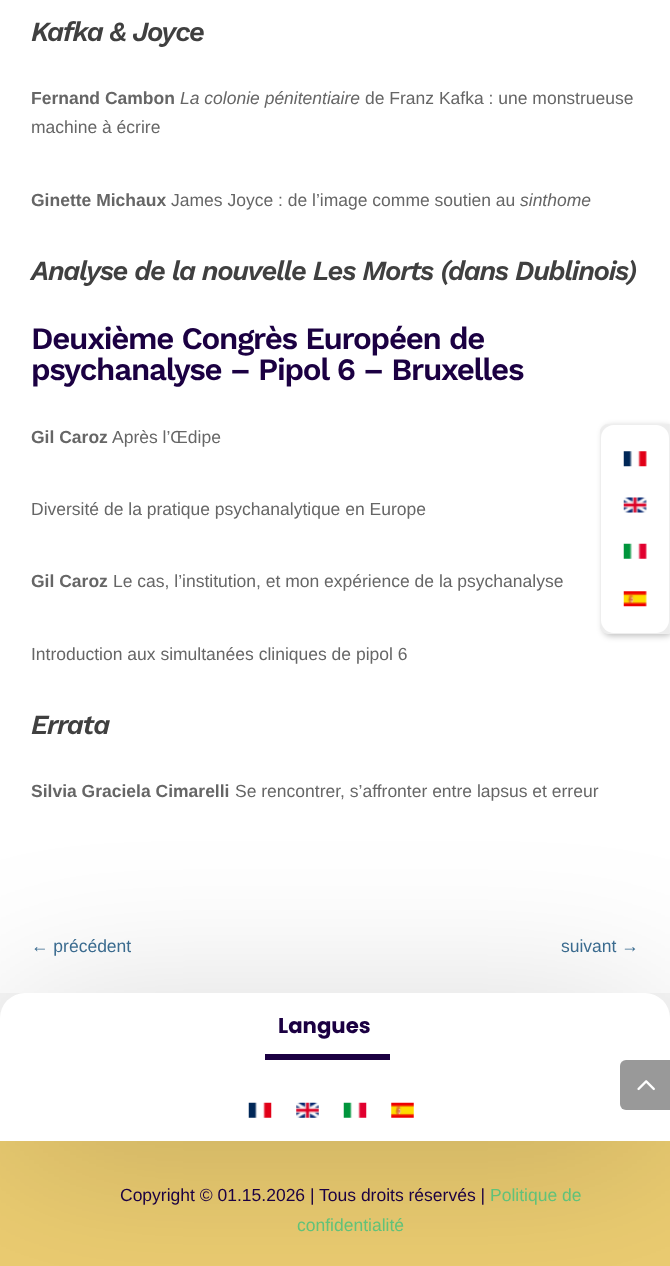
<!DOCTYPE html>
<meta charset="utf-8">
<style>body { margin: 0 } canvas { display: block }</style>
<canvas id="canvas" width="670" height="1266"></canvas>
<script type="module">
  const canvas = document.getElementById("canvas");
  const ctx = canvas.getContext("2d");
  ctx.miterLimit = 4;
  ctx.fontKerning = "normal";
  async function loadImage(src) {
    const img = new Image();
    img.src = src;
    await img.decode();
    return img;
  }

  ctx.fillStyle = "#f7f7f7";
  ctx.fillRect(0, 0, 670, 1266);
  ctx.fillStyle = "#ffffff";
  ctx.fillRect(0, 0, 670, 993);
  ctx.letterSpacing = "-1.25px";
  ctx.font = "italic 600 27.5px Work Sans";
  ctx.fillStyle = "#404040";
  ctx.fillText("Kafka & Joyce", 31, 41);
  ctx.letterSpacing = "0px";
  ctx.font = "bold 17.5px Liberation Sans";
  ctx.fillStyle = "#666666";
  ctx.fillText("Fernand Cambon", 31, 104);
  ctx.font = "italic 17.5px Liberation Sans";
  ctx.fillText("La colonie pénitentiaire", 180, 104);
  ctx.font = "17.5px Liberation Sans";
  ctx.fillText("de Franz Kafka : une monstrueuse", 365, 104);
  ctx.fillText("machine à écrire", 31, 133);
  ctx.font = "bold 17.5px Liberation Sans";
  ctx.fillText("Ginette Michaux", 31, 206);
  ctx.font = "17.5px Liberation Sans";
  ctx.fillText("James Joyce : de l’image comme soutien au", 171, 206);
  ctx.font = "italic 17.5px Liberation Sans";
  ctx.fillText("sinthome", 520, 206);
  ctx.letterSpacing = "-1.25px";
  ctx.font = "italic 600 27.5px Work Sans";
  ctx.fillStyle = "#404040";
  ctx.fillText("Analyse de la nouvelle Les Morts (dans Dublinois)", 31, 280);
  ctx.font = "600 31.25px Work Sans";
  ctx.fillStyle = "#1b0042";
  ctx.fillText("Deuxième Congrès Européen de", 31, 349);
  ctx.fillText("psychanalyse – Pipol 6 – Bruxelles", 31, 380);
  ctx.letterSpacing = "0px";
  ctx.font = "bold 17.5px Liberation Sans";
  ctx.fillStyle = "#666666";
  ctx.fillText("Gil Caroz", 31, 443);
  ctx.font = "17.5px Liberation Sans";
  ctx.fillText("Après l’Œdipe", 112, 443);
  ctx.fillText("Diversité de la pratique psychanalytique en Europe", 31, 515);
  ctx.font = "bold 17.5px Liberation Sans";
  ctx.fillText("Gil Caroz", 31, 587);
  ctx.font = "17.5px Liberation Sans";
  ctx.fillText("Le cas, l’institution, et mon expérience de la psychanalyse", 113, 587);
  ctx.fillText("Introduction aux simultanées cliniques de pipol 6", 31, 660);
  ctx.letterSpacing = "-1.25px";
  ctx.font = "italic 600 27.5px Work Sans";
  ctx.fillStyle = "#404040";
  ctx.fillText("Errata", 31, 734);
  ctx.letterSpacing = "0px";
  ctx.font = "bold 17.5px Liberation Sans";
  ctx.fillStyle = "#666666";
  ctx.fillText("Silvia Graciela Cimarelli", 31, 797);
  ctx.font = "17.5px Liberation Sans";
  ctx.fillText("Se rencontrer, s’affronter entre lapsus et erreur", 235, 797);
  ctx.fillStyle = "#3d6f94";
  ctx.fillText("← précédent", 31, 952);
  ctx.fillText("suivant →", 561, 952);
  ctx.fillStyle = "#ebcc71";
  ctx.fillRect(0, 1141, 670, 125);
  ctx.fillStyle = "rgba(0, 0, 0, 0.18)";
  ctx.filter = "blur(84.5px)";
  ctx.beginPath();
  ctx.roundRect(8, 1015, 655, 134, 18);
  ctx.fill();
  ctx.filter = "none";
  ctx.fillStyle = "#ffffff";
  ctx.beginPath();
  ctx.roundRect(0, 993, 670, 148, [25, 25, 0, 0]);
  ctx.fill();
  ctx.font = "bold 21.25px Poppins";
  ctx.fillStyle = "#1b0042";
  ctx.fillText("Langues", 278, 1033);
  ctx.fillRect(265, 1054, 125, 6);
  ctx.drawImage(await loadImage("img1.png"), 248, 1102, 24, 16);
  ctx.drawImage(await loadImage("img2.png"), 296, 1102, 23, 16);
  ctx.drawImage(await loadImage("img3.png"), 343, 1102, 24, 16);
  ctx.drawImage(await loadImage("img4.png"), 391, 1102, 23, 16);
  ctx.font = "17.5px Liberation Sans";
  ctx.fillText("Copyright © 01.15.2026 | Tous droits réservés |", 120, 1201);
  ctx.fillStyle = "#61c279";
  ctx.fillText("Politique de", 490, 1201);
  ctx.fillText("confidentialité", 297, 1231);
  ctx.fillStyle = "rgba(0, 0, 0, 0.25)";
  ctx.filter = "blur(3px)";
  ctx.beginPath();
  ctx.roundRect(603, 426, 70, 210, 8);
  ctx.fill();
  ctx.filter = "none";
  ctx.fillStyle = "#ededed";
  ctx.beginPath();
  ctx.roundRect(600.5, 424.5, 69, 209, [7.5, 0, 0, 7.5]);
  ctx.fill();
  ctx.strokeStyle = "#eeeeee";
  ctx.stroke();
  ctx.fillStyle = "#ffffff";
  ctx.beginPath();
  ctx.roundRect(601, 425, 68, 208, 13);
  ctx.fill();
  ctx.drawImage(await loadImage("img5.png"), 623, 451, 24, 16);
  ctx.drawImage(await loadImage("img6.png"), 623, 497, 24, 16);
  ctx.drawImage(await loadImage("img7.png"), 623, 543, 24, 16);
  ctx.drawImage(await loadImage("img8.png"), 623, 591, 24, 16);
  ctx.fillStyle = "#999999";
  ctx.beginPath();
  ctx.roundRect(620, 1060, 50, 50, [6, 0, 0, 6]);
  ctx.fill();
  ctx.drawImage(await loadImage("img9.png"), 637, 1080, 18, 11);
</script>
